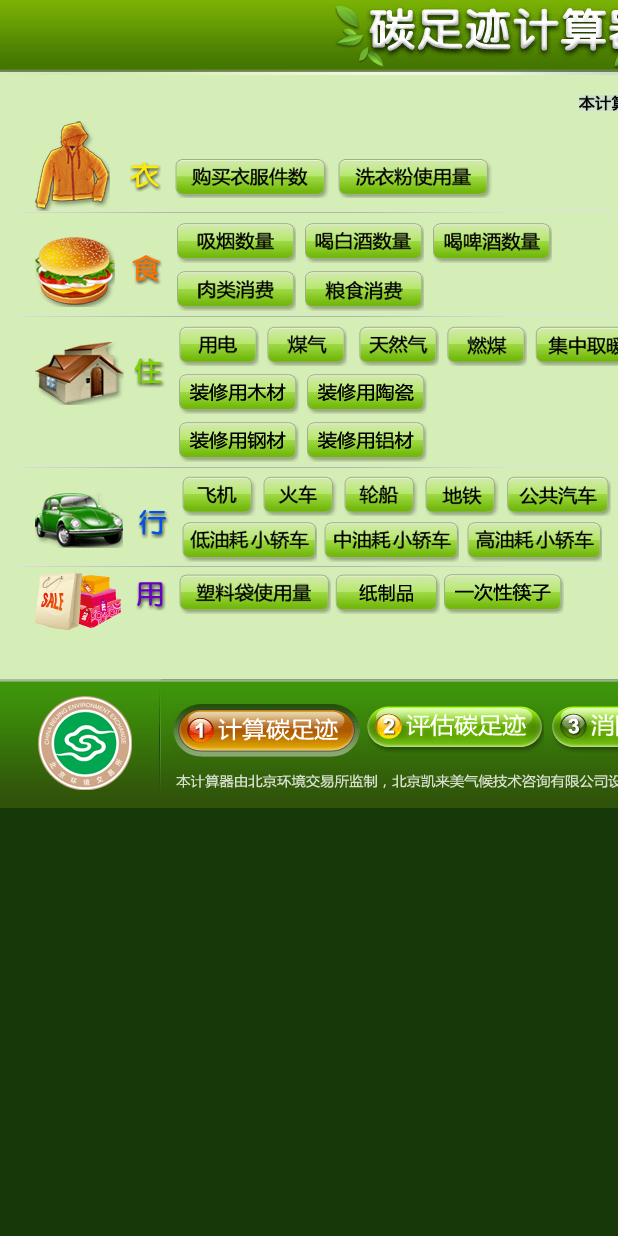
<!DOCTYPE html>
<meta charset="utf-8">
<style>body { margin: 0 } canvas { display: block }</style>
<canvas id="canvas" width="618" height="1236"></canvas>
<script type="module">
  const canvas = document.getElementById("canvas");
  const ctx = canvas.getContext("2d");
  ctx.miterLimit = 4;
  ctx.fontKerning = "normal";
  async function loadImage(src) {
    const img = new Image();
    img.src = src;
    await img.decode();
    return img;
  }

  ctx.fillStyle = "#173809";
  ctx.fillRect(0, 0, 618, 1236);
  ctx.drawImage(await loadImage("img1.png"), 0, 0, 618, 75);
  ctx.fillStyle = "#d5edb7";
  ctx.fillRect(0, 75, 618, 604);
  ctx.drawImage(await loadImage("img2.png"), 579, 95, 39, 16);
  ctx.drawImage(await loadImage("img3.png"), 35, 121, 75, 90);
  ctx.drawImage(await loadImage("img4.png"), 130, 162, 31, 30);
  ctx.drawImage(await loadImage("img5.png"), 175, 159, 154, 39);
  ctx.drawImage(await loadImage("img6.png"), 338, 159, 154, 39);
  ctx.drawImage(await loadImage("img7.png"), 21, 212, 482, 1);
  ctx.fillStyle = "#e0e0e0";
  ctx.fillRect(20, 211, 592, 1);
  ctx.fillRect(611, 211, 1, 2);
  ctx.fillRect(20, 211, 1, 2);
  ctx.drawImage(await loadImage("img8.png"), 35, 237, 80, 70);
  ctx.drawImage(await loadImage("img9.png"), 131, 255, 31, 30);
  ctx.drawImage(await loadImage("img10.png"), 177, 223, 119, 40);
  ctx.drawImage(await loadImage("img11.png"), 305, 223, 119, 40);
  ctx.drawImage(await loadImage("img12.png"), 433, 223, 119, 40);
  ctx.drawImage(await loadImage("img13.png"), 177, 271, 119, 40);
  ctx.drawImage(await loadImage("img14.png"), 305, 271, 119, 40);
  ctx.drawImage(await loadImage("img7.png"), 21, 316, 482, 1);
  ctx.fillRect(20, 315, 592, 1);
  ctx.fillRect(611, 315, 1, 2);
  ctx.fillRect(20, 315, 1, 2);
  ctx.drawImage(await loadImage("img15.png"), 35, 342, 89, 63);
  ctx.drawImage(await loadImage("img16.png"), 134, 358, 31, 30);
  ctx.drawImage(await loadImage("img17.png"), 179, 326, 80, 40);
  ctx.drawImage(await loadImage("img18.png"), 267, 326, 80, 40);
  ctx.drawImage(await loadImage("img19.png"), 359, 326, 80, 40);
  ctx.drawImage(await loadImage("img20.png"), 447, 326, 80, 40);
  ctx.drawImage(await loadImage("img21.png"), 535, 326, 83, 40);
  ctx.drawImage(await loadImage("img22.png"), 179, 374, 120, 40);
  ctx.drawImage(await loadImage("img23.png"), 307, 374, 120, 40);
  ctx.drawImage(await loadImage("img24.png"), 179, 422, 120, 40);
  ctx.drawImage(await loadImage("img25.png"), 307, 422, 120, 40);
  ctx.drawImage(await loadImage("img7.png"), 21, 467, 482, 1);
  ctx.fillRect(20, 466, 592, 1);
  ctx.fillRect(611, 466, 1, 2);
  ctx.fillRect(20, 466, 1, 2);
  ctx.drawImage(await loadImage("img26.png"), 35, 493, 88, 55);
  ctx.drawImage(await loadImage("img27.png"), 138, 509, 31, 30);
  ctx.drawImage(await loadImage("img28.png"), 182, 476, 74, 40);
  ctx.drawImage(await loadImage("img29.png"), 263, 476, 74, 40);
  ctx.drawImage(await loadImage("img30.png"), 344, 476, 74, 40);
  ctx.drawImage(await loadImage("img31.png"), 425, 476, 74, 40);
  ctx.drawImage(await loadImage("img32.png"), 507, 476, 104, 40);
  ctx.drawImage(await loadImage("img33.png"), 182, 522, 135, 40);
  ctx.drawImage(await loadImage("img34.png"), 324, 522, 135, 40);
  ctx.drawImage(await loadImage("img35.png"), 467, 522, 135, 40);
  ctx.drawImage(await loadImage("img7.png"), 21, 566, 482, 1);
  ctx.fillRect(20, 565, 592, 1);
  ctx.fillRect(611, 565, 1, 2);
  ctx.fillRect(20, 565, 1, 2);
  ctx.drawImage(await loadImage("img36.png"), 35, 572, 86, 58);
  ctx.drawImage(await loadImage("img37.png"), 136, 581, 30, 30);
  ctx.drawImage(await loadImage("img38.png"), 179, 574, 152, 40);
  ctx.drawImage(await loadImage("img39.png"), 335, 574, 105, 40);
  ctx.drawImage(await loadImage("img40.png"), 444, 574, 120, 40);
  ctx.drawImage(await loadImage("img41.png"), 0, 679, 618, 129);
  ctx.drawImage(await loadImage("img42.png"), 0, 679, 161, 112);
  ctx.drawImage(await loadImage("img43.png"), 173, 704, 187, 53);
  ctx.drawImage(await loadImage("img44.png"), 367, 706, 177, 47);
  ctx.drawImage(await loadImage("img45.png"), 552, 706, 66, 47);
  ctx.drawImage(await loadImage("img46.png"), 176, 774, 442, 14);
</script>
